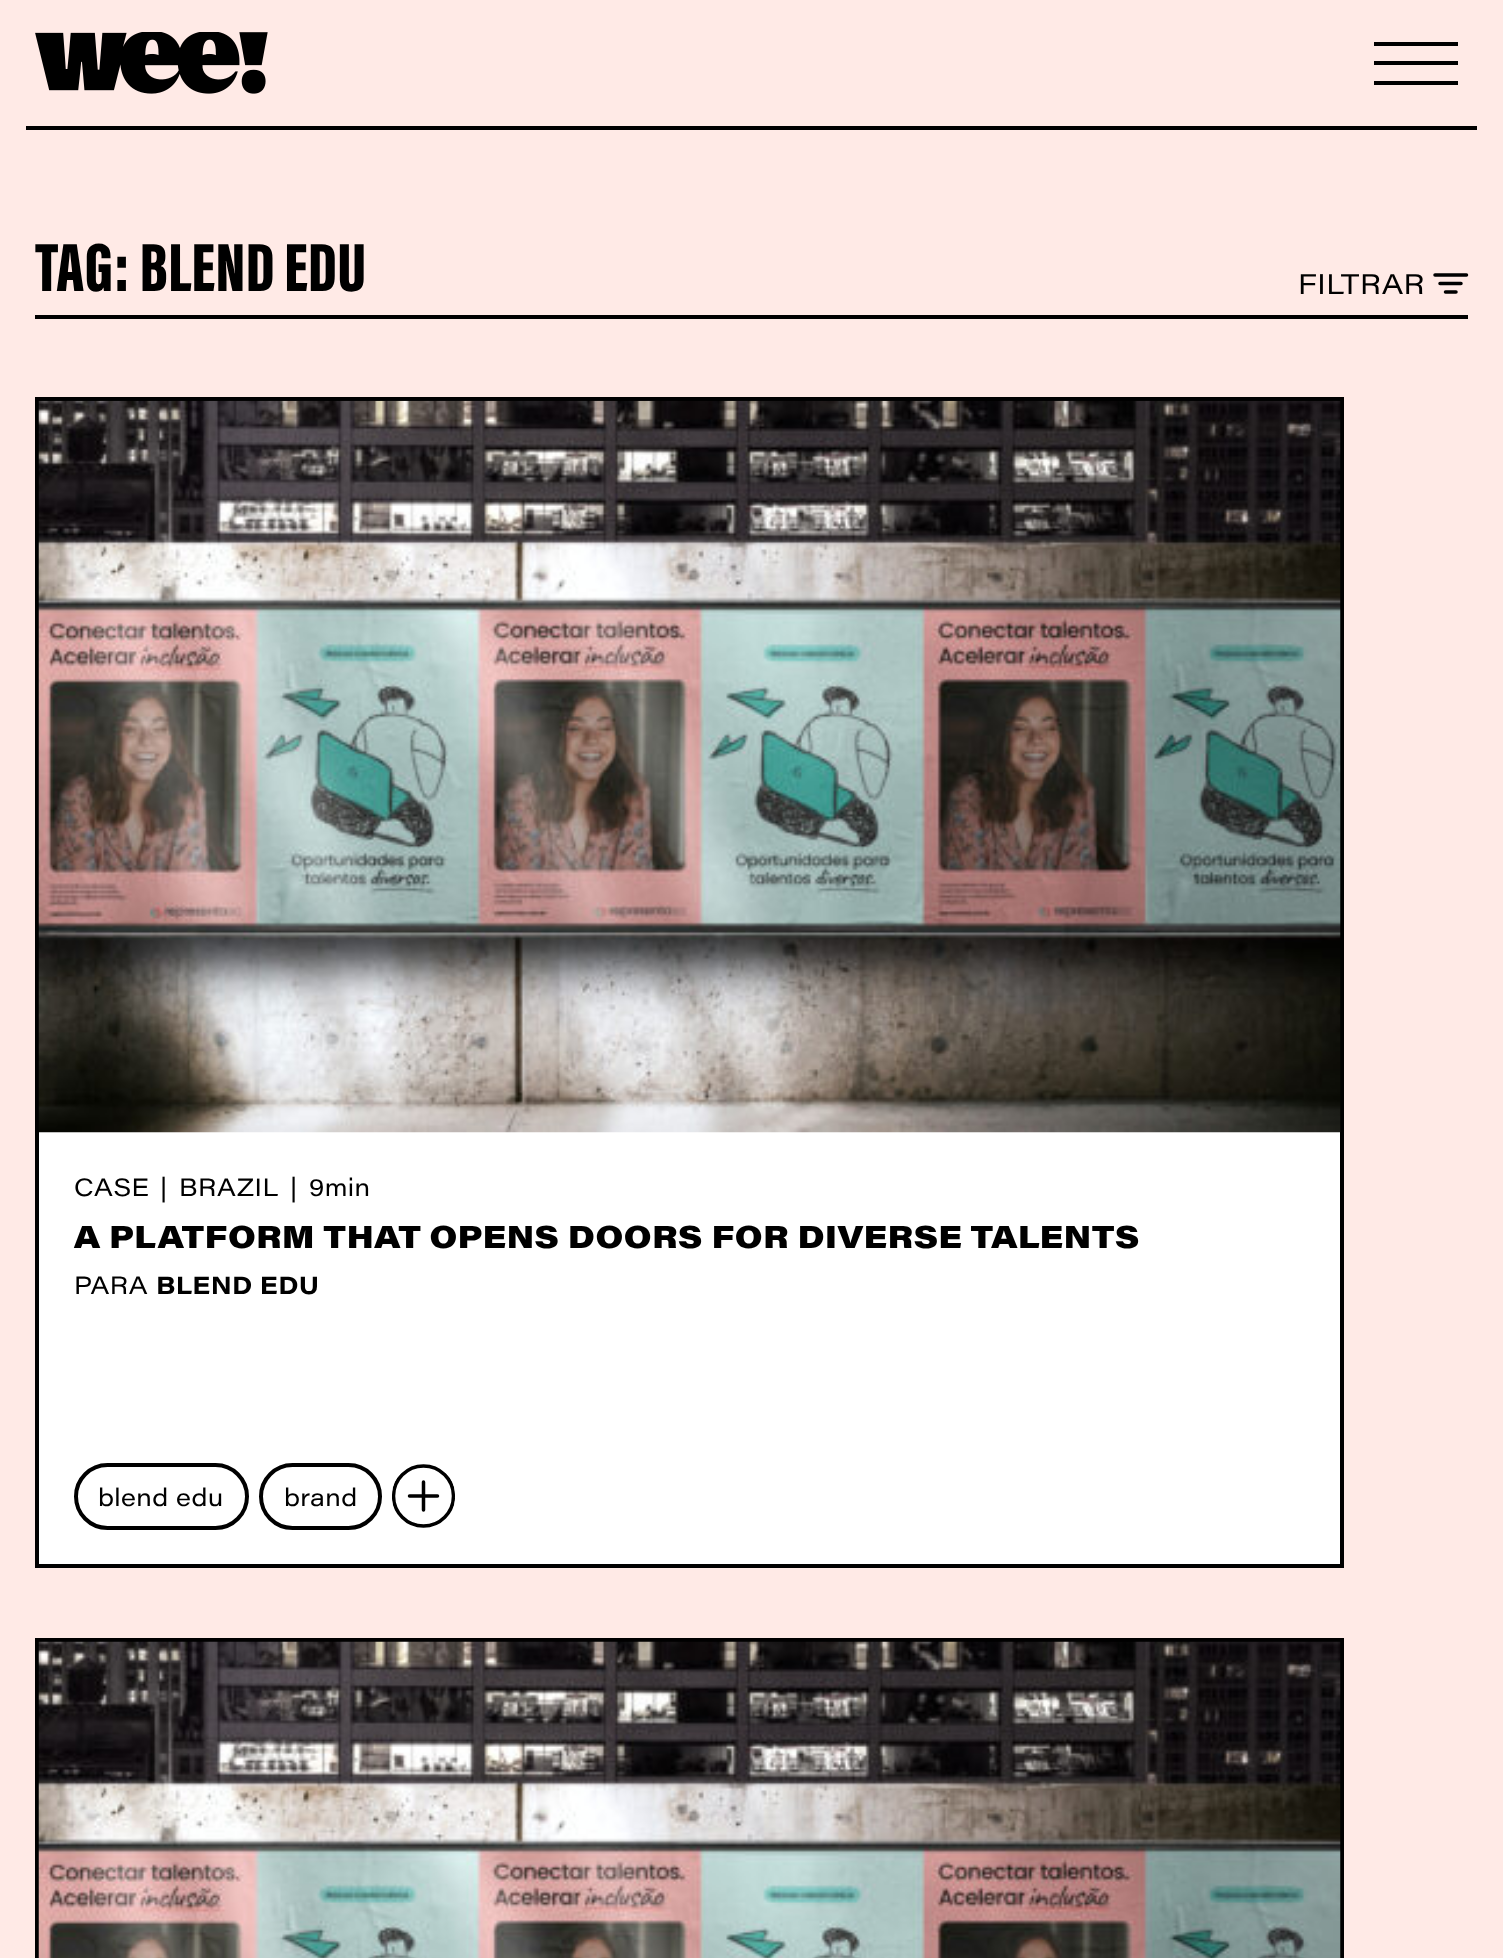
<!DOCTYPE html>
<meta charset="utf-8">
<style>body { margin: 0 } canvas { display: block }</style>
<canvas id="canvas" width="1503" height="1958"></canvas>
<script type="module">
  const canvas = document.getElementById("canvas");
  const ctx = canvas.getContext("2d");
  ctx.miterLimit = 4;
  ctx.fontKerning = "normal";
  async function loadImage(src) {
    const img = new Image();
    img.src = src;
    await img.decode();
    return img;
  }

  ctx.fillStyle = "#ffeae6";
  ctx.fillRect(0, 0, 1503, 1958);
  ctx.drawImage(await loadImage("img1.png"), 35, 32, 233, 62);
  ctx.fillStyle = "#000000";
  ctx.fillRect(1374, 42, 84, 4);
  ctx.fillRect(1374, 61, 84, 4);
  ctx.fillRect(1374, 81, 84, 4);
  ctx.fillRect(26, 126, 1451, 4);
  ctx.letterSpacing = "0.35px";
  ctx.font = "900 70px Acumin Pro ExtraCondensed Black";
  ctx.fillText("TAG: BLEND EDU", 35, 291);
  ctx.font = "28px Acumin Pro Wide";
  ctx.fillText("FILTRAR", 1298, 294);
  ctx.beginPath();
  ctx.moveTo(1435, 275);
  ctx.lineTo(1466.5, 275);
  ctx.moveTo(1440, 283.5);
  ctx.lineTo(1461, 283.5);
  ctx.moveTo(1445.5, 292);
  ctx.lineTo(1456, 292);
  ctx.strokeStyle = "#000000";
  ctx.lineWidth = 3.5;
  ctx.lineCap = "round";
  ctx.stroke();
  ctx.fillRect(35, 315, 1433, 4);
  ctx.fillStyle = "#ffffff";
  ctx.fillRect(39, 1132, 1301, 432);
  ctx.lineWidth = 4;
  ctx.strokeRect(37, 399, 1305, 1167);
  ctx.drawImage(await loadImage("img2.png"), 38, 400, 1303, 733);
  ctx.font = "24.5px Acumin Pro Wide";
  ctx.fillStyle = "#000000";
  ctx.fillText("CASE", 74, 1196);
  ctx.fillText("|", 160, 1196);
  ctx.fillText("BRAZIL", 179, 1196);
  ctx.fillText("|", 290, 1196);
  ctx.fillText("9min", 309, 1196);
  ctx.font = "900 31.35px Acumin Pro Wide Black";
  ctx.fillText("A PLATFORM THAT OPENS DOORS FOR DIVERSE TALENTS", 74, 1248);
  ctx.font = "24.5px Acumin Pro Wide";
  ctx.fillText("PARA", 74, 1294);
  ctx.font = "bold 24.5px Acumin Pro Wide";
  ctx.fillText("BLEND EDU", 156, 1294);
  ctx.beginPath();
  ctx.roundRect(76, 1465, 171, 63, 31.5);
  ctx.stroke();
  ctx.font = "24.5px Acumin Pro Wide";
  ctx.fillText("blend edu", 98, 1506);
  ctx.beginPath();
  ctx.roundRect(261, 1465, 119, 63, 31.5);
  ctx.stroke();
  ctx.fillText("brand", 284, 1506);
  ctx.save();
  ctx.beginPath();
  ctx.roundRect(392, 1463, 63, 67, 31.5);
  ctx.clip();
  ctx.beginPath();
  ctx.arc(423.5, 1496, 30, 0, Math.PI * 2);
  ctx.lineWidth = 3.5;
  ctx.stroke();
  ctx.restore();
  ctx.beginPath();
  ctx.moveTo(423.5, 1482);
  ctx.lineTo(423.5, 1510);
  ctx.moveTo(409.5, 1496);
  ctx.lineTo(437.5, 1496);
  ctx.lineWidth = 3.5;
  ctx.stroke();
  ctx.lineWidth = 4;
  ctx.strokeRect(37, 1640, 1305, 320);
  ctx.drawImage(await loadImage("img3.png"), 38, 1641, 1303, 317);
</script>
